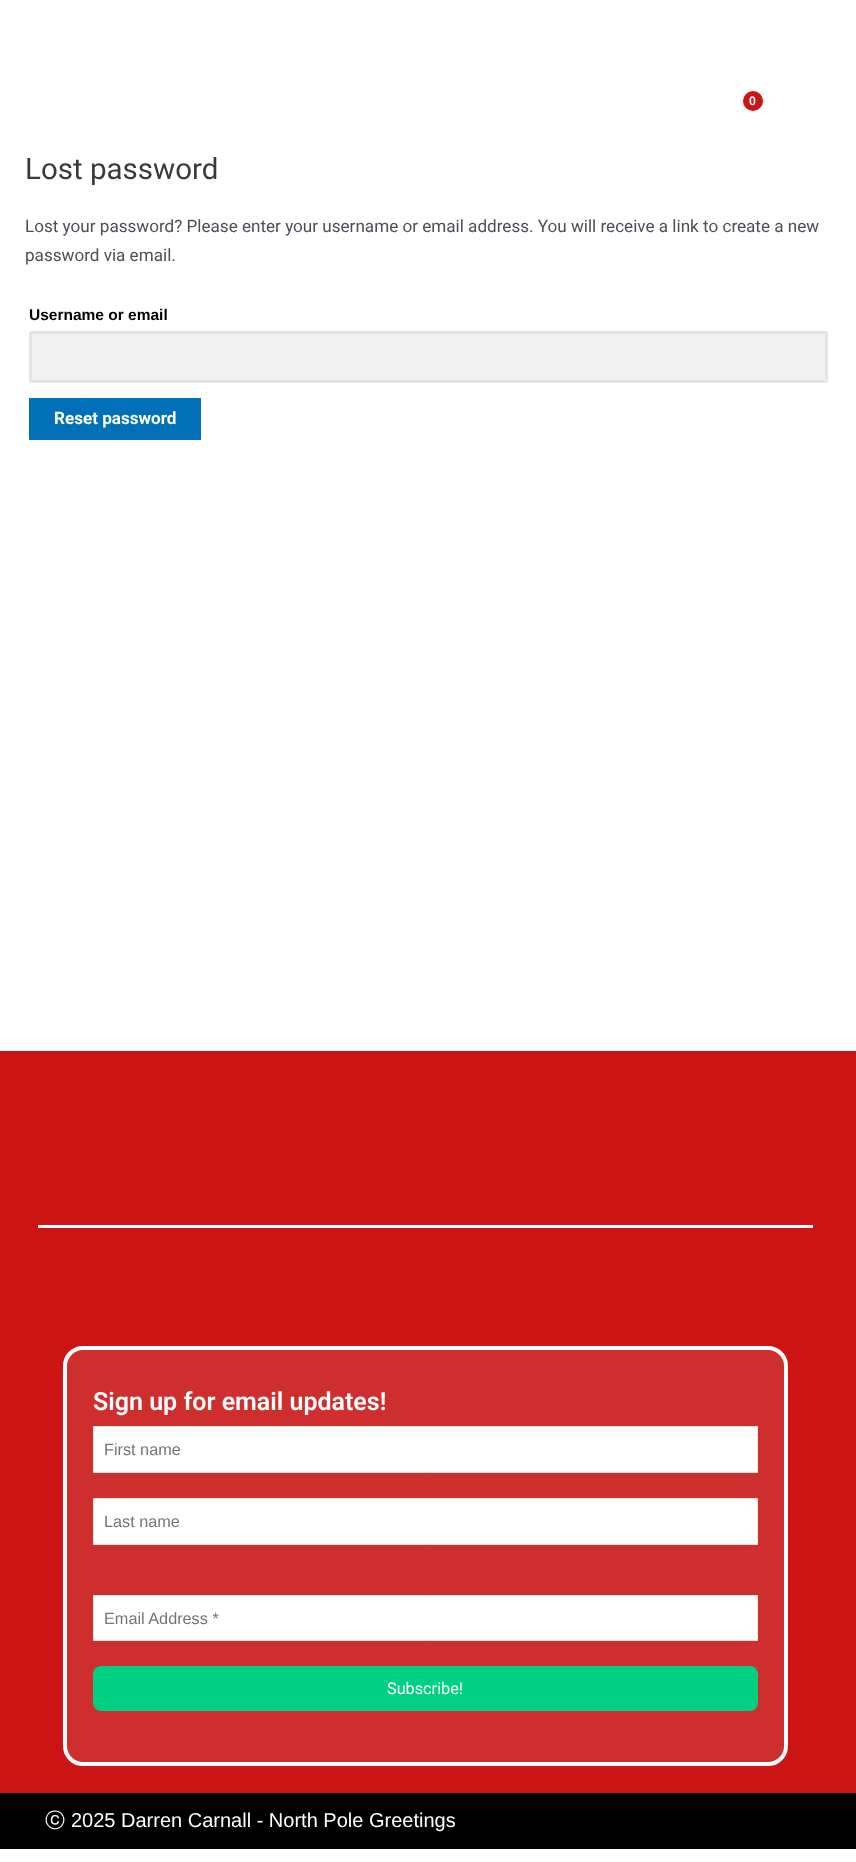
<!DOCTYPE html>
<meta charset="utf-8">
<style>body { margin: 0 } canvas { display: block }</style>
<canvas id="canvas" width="856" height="1862"></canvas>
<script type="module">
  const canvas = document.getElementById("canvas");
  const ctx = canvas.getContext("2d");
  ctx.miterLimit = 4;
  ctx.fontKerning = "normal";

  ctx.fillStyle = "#ffffff";
  ctx.fillRect(0, 0, 856, 1862);
  ctx.fillStyle = "#cc1414";
  ctx.beginPath();
  ctx.arc(753, 101, 10, 0, Math.PI * 2);
  ctx.fill();
  ctx.font = "600 12px Roboto";
  ctx.fillStyle = "#ffffff";
  ctx.fillText("0", 749, 105);
  ctx.font = "29.5px Roboto";
  ctx.fillStyle = "#3a3a3a";
  ctx.fillText("Lost password", 25, 179);
  ctx.font = "17.1px Roboto";
  ctx.fillStyle = "#4b4f58";
  ctx.fillText("Lost your password? Please enter your username or email address. You will receive a link to create a new", 25, 232);
  ctx.fillText("password via email.", 25, 261);
  ctx.font = "bold 15.5px Liberation Sans";
  ctx.fillStyle = "#000000";
  ctx.fillText("Username or email", 29, 320);
  ctx.fillStyle = "#f2f2f2";
  ctx.beginPath();
  ctx.roundRect(30.5, 332.5, 796, 49, 1);
  ctx.fill();
  ctx.strokeStyle = "#e4e4e4";
  ctx.lineWidth = 3;
  ctx.stroke();
  ctx.fillStyle = "#0170b9";
  ctx.fillRect(29, 398, 172, 42);
  ctx.font = "bold 17.1px Roboto";
  ctx.fillStyle = "#ffffff";
  ctx.fillText("Reset password", 54, 424);
  ctx.fillStyle = "#cc1414";
  ctx.fillRect(0, 1051, 856, 742);
  ctx.fillStyle = "#ffffff";
  ctx.fillRect(38, 1225, 775, 3);
  ctx.fillStyle = "#cf2e2e";
  ctx.beginPath();
  ctx.roundRect(65, 1348, 721, 416, 18);
  ctx.fill();
  ctx.strokeStyle = "#ffffff";
  ctx.lineWidth = 4;
  ctx.stroke();
  ctx.font = "600 25px Roboto";
  ctx.fillStyle = "#ffffff";
  ctx.fillText("Sign up for email updates!", 93, 1410);
  ctx.beginPath();
  ctx.rect(93.5, 1426.5, 664, 46);
  ctx.fill();
  ctx.strokeStyle = "#e5e5e5";
  ctx.lineWidth = 1;
  ctx.stroke();
  ctx.font = "16.25px Liberation Sans";
  ctx.fillStyle = "#757575";
  ctx.fillText("First name", 104, 1455);
  ctx.fillStyle = "#ffffff";
  ctx.beginPath();
  ctx.rect(93.5, 1498.5, 664, 46);
  ctx.fill();
  ctx.stroke();
  ctx.fillStyle = "#757575";
  ctx.fillText("Last name", 104, 1527);
  ctx.fillStyle = "#ffffff";
  ctx.beginPath();
  ctx.rect(93.5, 1595.5, 664, 45);
  ctx.fill();
  ctx.stroke();
  ctx.fillStyle = "#757575";
  ctx.fillText("Email Address *", 104, 1624);
  ctx.fillStyle = "#00d084";
  ctx.beginPath();
  ctx.roundRect(93, 1666, 665, 45, 8);
  ctx.fill();
  ctx.font = "16.25px Roboto";
  ctx.fillStyle = "#ffffff";
  ctx.fillText("Subscribe!", 387, 1694);
  ctx.fillStyle = "#000000";
  ctx.fillRect(0, 1793, 856, 56);
  ctx.font = "500 20px WenQuanYi Zen Hei";
  ctx.fillStyle = "#ffffff";
  ctx.fillText("ⓒ", 45, 1827);
  ctx.font = "20px Liberation Sans";
  ctx.fillText("2025 Darren Carnall - North Pole Greetings", 71, 1827);
</script>
